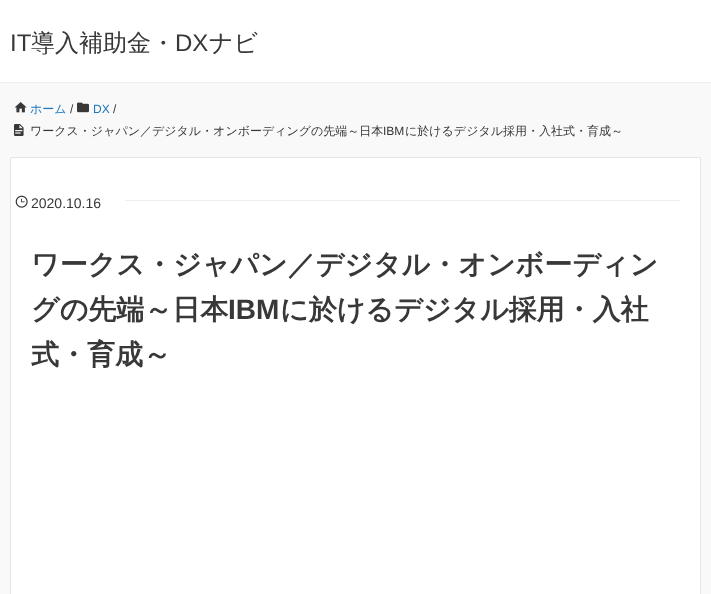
<!DOCTYPE html>
<meta charset="utf-8">
<style>body { margin: 0 } canvas { display: block }</style>
<canvas id="canvas" width="711" height="594"></canvas>
<script type="module">
  const canvas = document.getElementById("canvas");
  const ctx = canvas.getContext("2d");
  ctx.miterLimit = 4;
  ctx.fontKerning = "normal";
  async function loadImage(src) {
    const img = new Image();
    img.src = src;
    await img.decode();
    return img;
  }

  ctx.fillStyle = "#f9f9f9";
  ctx.fillRect(0, 0, 711, 594);
  ctx.fillStyle = "#ffffff";
  ctx.fillRect(0, 0, 711, 82);
  ctx.fillStyle = "#efefef";
  ctx.fillRect(0, 82, 711, 1);
  ctx.font = "24px Liberation Sans";
  ctx.fillStyle = "#383838";
  ctx.fillText("IT", 10, 51);
  ctx.font = "500 24px WenQuanYi Zen Hei";
  ctx.fillText("導入補助金・", 31, 51);
  ctx.font = "24px Liberation Sans";
  ctx.fillText("DX", 175, 51);
  ctx.font = "500 24px WenQuanYi Zen Hei";
  ctx.fillText("ナビ", 209, 51);
  ctx.drawImage(await loadImage("img1.png"), 14, 102, 13, 11);
  ctx.font = "500 12px WenQuanYi Zen Hei";
  ctx.fillStyle = "#1877bd";
  ctx.fillText("ホーム", 30, 113);
  ctx.font = "12px Liberation Sans";
  ctx.fillStyle = "#383838";
  ctx.fillText("/", 70, 113);
  ctx.drawImage(await loadImage("img2.png"), 77, 102, 12, 11);
  ctx.fillStyle = "#1877bd";
  ctx.fillText("DX", 93, 113);
  ctx.fillStyle = "#383838";
  ctx.fillText("/", 113, 113);
  ctx.drawImage(await loadImage("img3.png"), 14, 124, 10, 12);
  ctx.font = "500 12px WenQuanYi Zen Hei";
  ctx.fillText("ワークス・ジャパン／デジタル・オンボーディングの先端～日本", 30, 135);
  ctx.font = "12px Liberation Sans";
  ctx.fillText("IBM", 383, 135);
  ctx.font = "500 12px WenQuanYi Zen Hei";
  ctx.fillText("に於けるデジタル採用・入社式・育成～", 405, 135);
  ctx.fillStyle = "#ffffff";
  ctx.beginPath();
  ctx.rect(10.5, 157.5, 690, 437);
  ctx.fill();
  ctx.strokeStyle = "#e5e5e5";
  ctx.stroke();
  ctx.fillStyle = "#efefef";
  ctx.fillRect(125, 200, 555, 1);
  ctx.drawImage(await loadImage("img4.png"), 15, 195, 13, 13);
  ctx.font = "14px Liberation Sans";
  ctx.fillStyle = "#383838";
  ctx.fillText("2020.10.16", 31, 208);
  ctx.font = "bold 28px WenQuanYi Zen Hei";
  ctx.fillText("ワークス・ジャパン／デジタル・オンボーディン", 31, 274);
  ctx.fillText("グの先端～日本", 31, 319);
  ctx.font = "bold 28px Liberation Sans";
  ctx.fillText("IBM", 228, 319);
  ctx.font = "bold 28px WenQuanYi Zen Hei";
  ctx.fillText("に於けるデジタル採用・入社", 280, 319);
  ctx.fillText("式・育成～", 31, 364);
</script>
